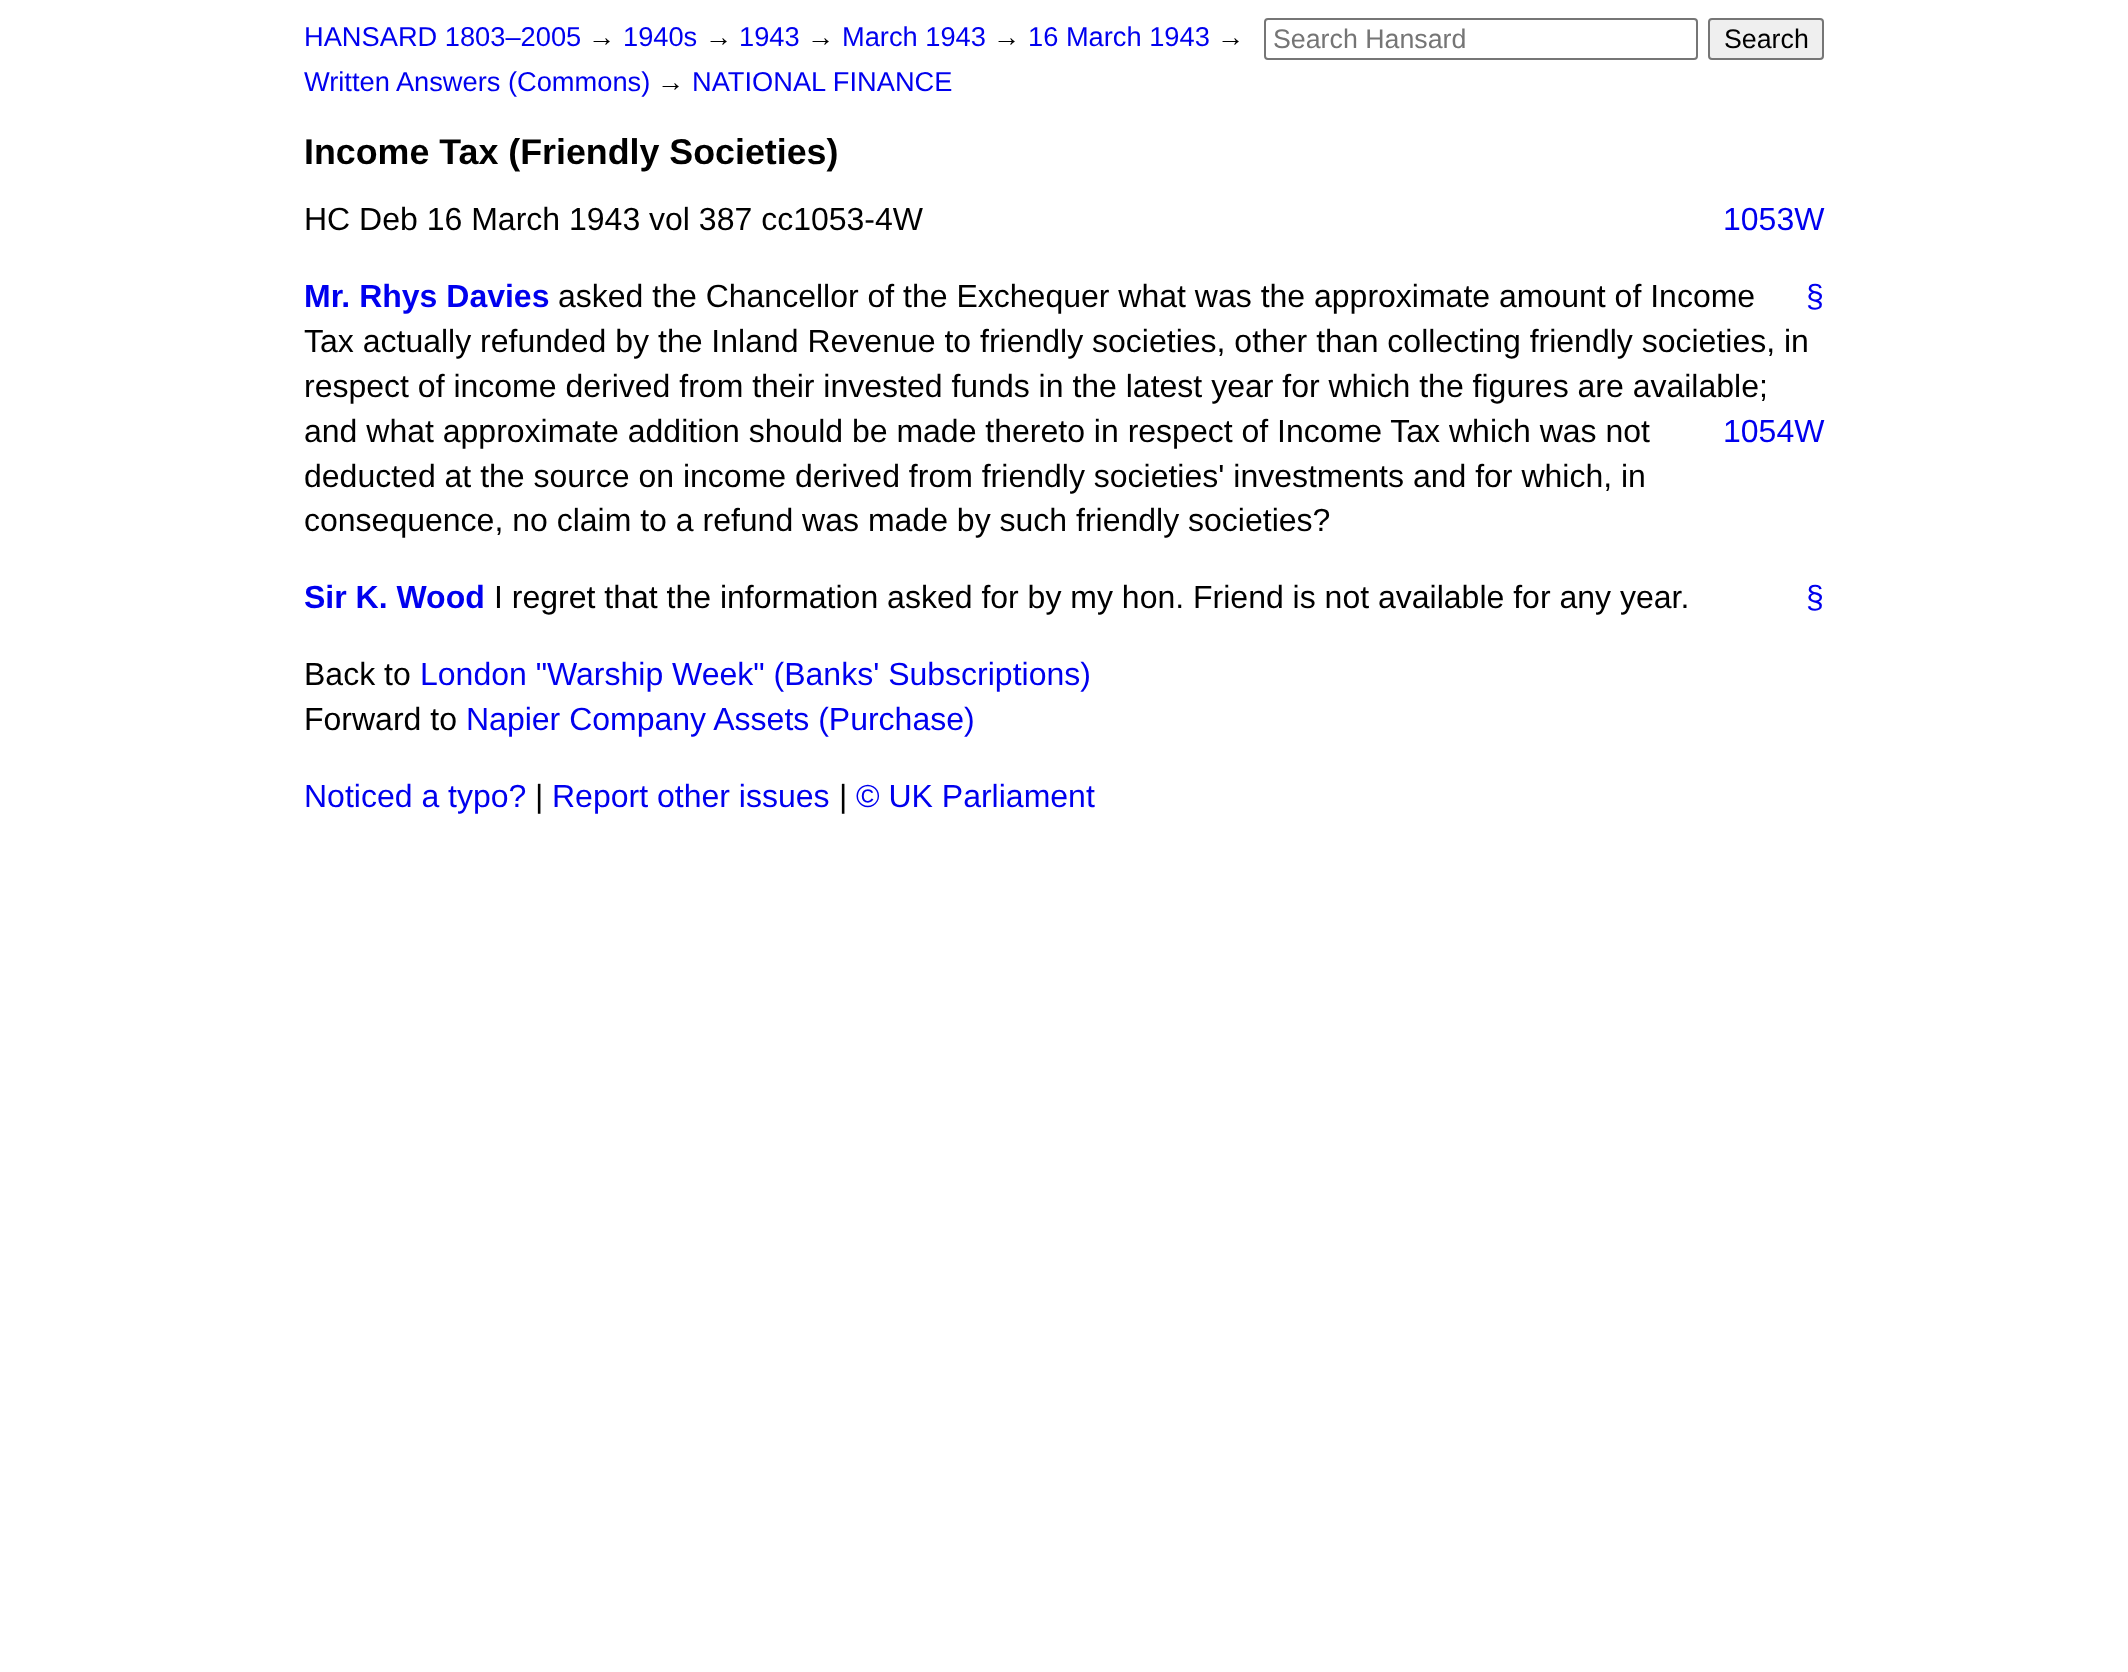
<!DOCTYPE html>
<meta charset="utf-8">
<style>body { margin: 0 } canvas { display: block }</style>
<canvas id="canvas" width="2128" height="1672"></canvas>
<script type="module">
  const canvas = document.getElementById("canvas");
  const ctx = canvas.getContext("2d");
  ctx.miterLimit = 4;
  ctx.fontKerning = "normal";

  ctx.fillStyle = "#ffffff";
  ctx.fillRect(0, 0, 2128, 1672);
  ctx.font = "27.25px Liberation Sans";
  ctx.fillStyle = "#0000ee";
  ctx.fillText("HANSARD 1803–2005", 304, 46);
  ctx.fillStyle = "#000000";
  ctx.fillText("→", 588, 46);
  ctx.fillStyle = "#0000ee";
  ctx.fillText("1940s", 623, 46);
  ctx.fillStyle = "#000000";
  ctx.fillText("→", 705, 46);
  ctx.fillStyle = "#0000ee";
  ctx.fillText("1943", 739, 46);
  ctx.fillStyle = "#000000";
  ctx.fillText("→", 807, 46);
  ctx.fillStyle = "#0000ee";
  ctx.fillText("March 1943", 842, 46);
  ctx.fillStyle = "#000000";
  ctx.fillText("→", 993, 46);
  ctx.fillStyle = "#0000ee";
  ctx.fillText("16 March 1943", 1028, 46);
  ctx.fillStyle = "#000000";
  ctx.fillText("→", 1217, 46);
  ctx.fillStyle = "#0000ee";
  ctx.fillText("Written Answers (Commons)", 304, 91);
  ctx.fillStyle = "#000000";
  ctx.fillText("→", 657, 91);
  ctx.fillStyle = "#0000ee";
  ctx.fillText("NATIONAL FINANCE", 692, 91);
  ctx.beginPath();
  ctx.roundRect(1265, 19, 432, 40, 3);
  ctx.strokeStyle = "#767676";
  ctx.lineWidth = 2;
  ctx.stroke();
  ctx.font = "26.75px Liberation Sans";
  ctx.fillStyle = "#757575";
  ctx.fillText("Search Hansard", 1273, 48);
  ctx.fillStyle = "#efefef";
  ctx.beginPath();
  ctx.roundRect(1709, 19, 114, 40, 3);
  ctx.fill();
  ctx.stroke();
  ctx.fillStyle = "#000000";
  ctx.fillText("Search", 1724, 48);
  ctx.font = "bold 35.8px Liberation Sans";
  ctx.fillText("Income Tax (Friendly Societies)", 304, 164);
  ctx.font = "32px Liberation Sans";
  ctx.fillText("HC Deb 16 March 1943 vol 387 cc1053-4W", 304, 230);
  ctx.fillStyle = "#0000ee";
  ctx.fillText("1053W", 1723, 230);
  ctx.fillStyle = "#000000";
  ctx.fillText("asked the Chancellor of the Exchequer what was the approximate amount of Income", 558, 307);
  ctx.fillText("Tax actually refunded by the Inland Revenue to friendly societies, other than collecting friendly societies, in", 304, 352);
  ctx.fillText("respect of income derived from their invested funds in the latest year for which the figures are available;", 304, 397);
  ctx.fillText("and what approximate addition should be made thereto in respect of Income Tax which was not", 304, 442);
  ctx.fillStyle = "#0000ee";
  ctx.fillText("1054W", 1723, 442);
  ctx.fillStyle = "#000000";
  ctx.fillText("deducted at the source on income derived from friendly societies' investments and for which, in", 304, 487);
  ctx.fillText("consequence, no claim to a refund was made by such friendly societies?", 304, 531);
  ctx.font = "bold 32px Liberation Sans";
  ctx.fillStyle = "#0000ee";
  ctx.fillText("Mr. Rhys Davies", 304, 307);
  ctx.font = "32px Liberation Sans";
  ctx.fillText("§", 1806, 307);
  ctx.font = "bold 32px Liberation Sans";
  ctx.fillText("Sir K. Wood", 304, 608);
  ctx.font = "32px Liberation Sans";
  ctx.fillStyle = "#000000";
  ctx.fillText("I regret that the information asked for by my hon. Friend is not available for any year.", 494, 608);
  ctx.fillStyle = "#0000ee";
  ctx.fillText("§", 1806, 608);
  ctx.fillStyle = "#000000";
  ctx.fillText("Back to", 304, 685);
  ctx.fillStyle = "#0000ee";
  ctx.fillText("London \"Warship Week\" (Banks' Subscriptions)", 420, 685);
  ctx.fillStyle = "#000000";
  ctx.fillText("Forward to", 304, 730);
  ctx.fillStyle = "#0000ee";
  ctx.fillText("Napier Company Assets (Purchase)", 466, 730);
  ctx.fillText("Noticed a typo?", 304, 807);
  ctx.fillStyle = "#000000";
  ctx.fillText("|", 535, 807);
  ctx.fillStyle = "#0000ee";
  ctx.fillText("Report other issues", 552, 807);
  ctx.fillStyle = "#000000";
  ctx.fillText("|", 839, 807);
  ctx.fillStyle = "#0000ee";
  ctx.fillText("© UK Parliament", 856, 807);
</script>
